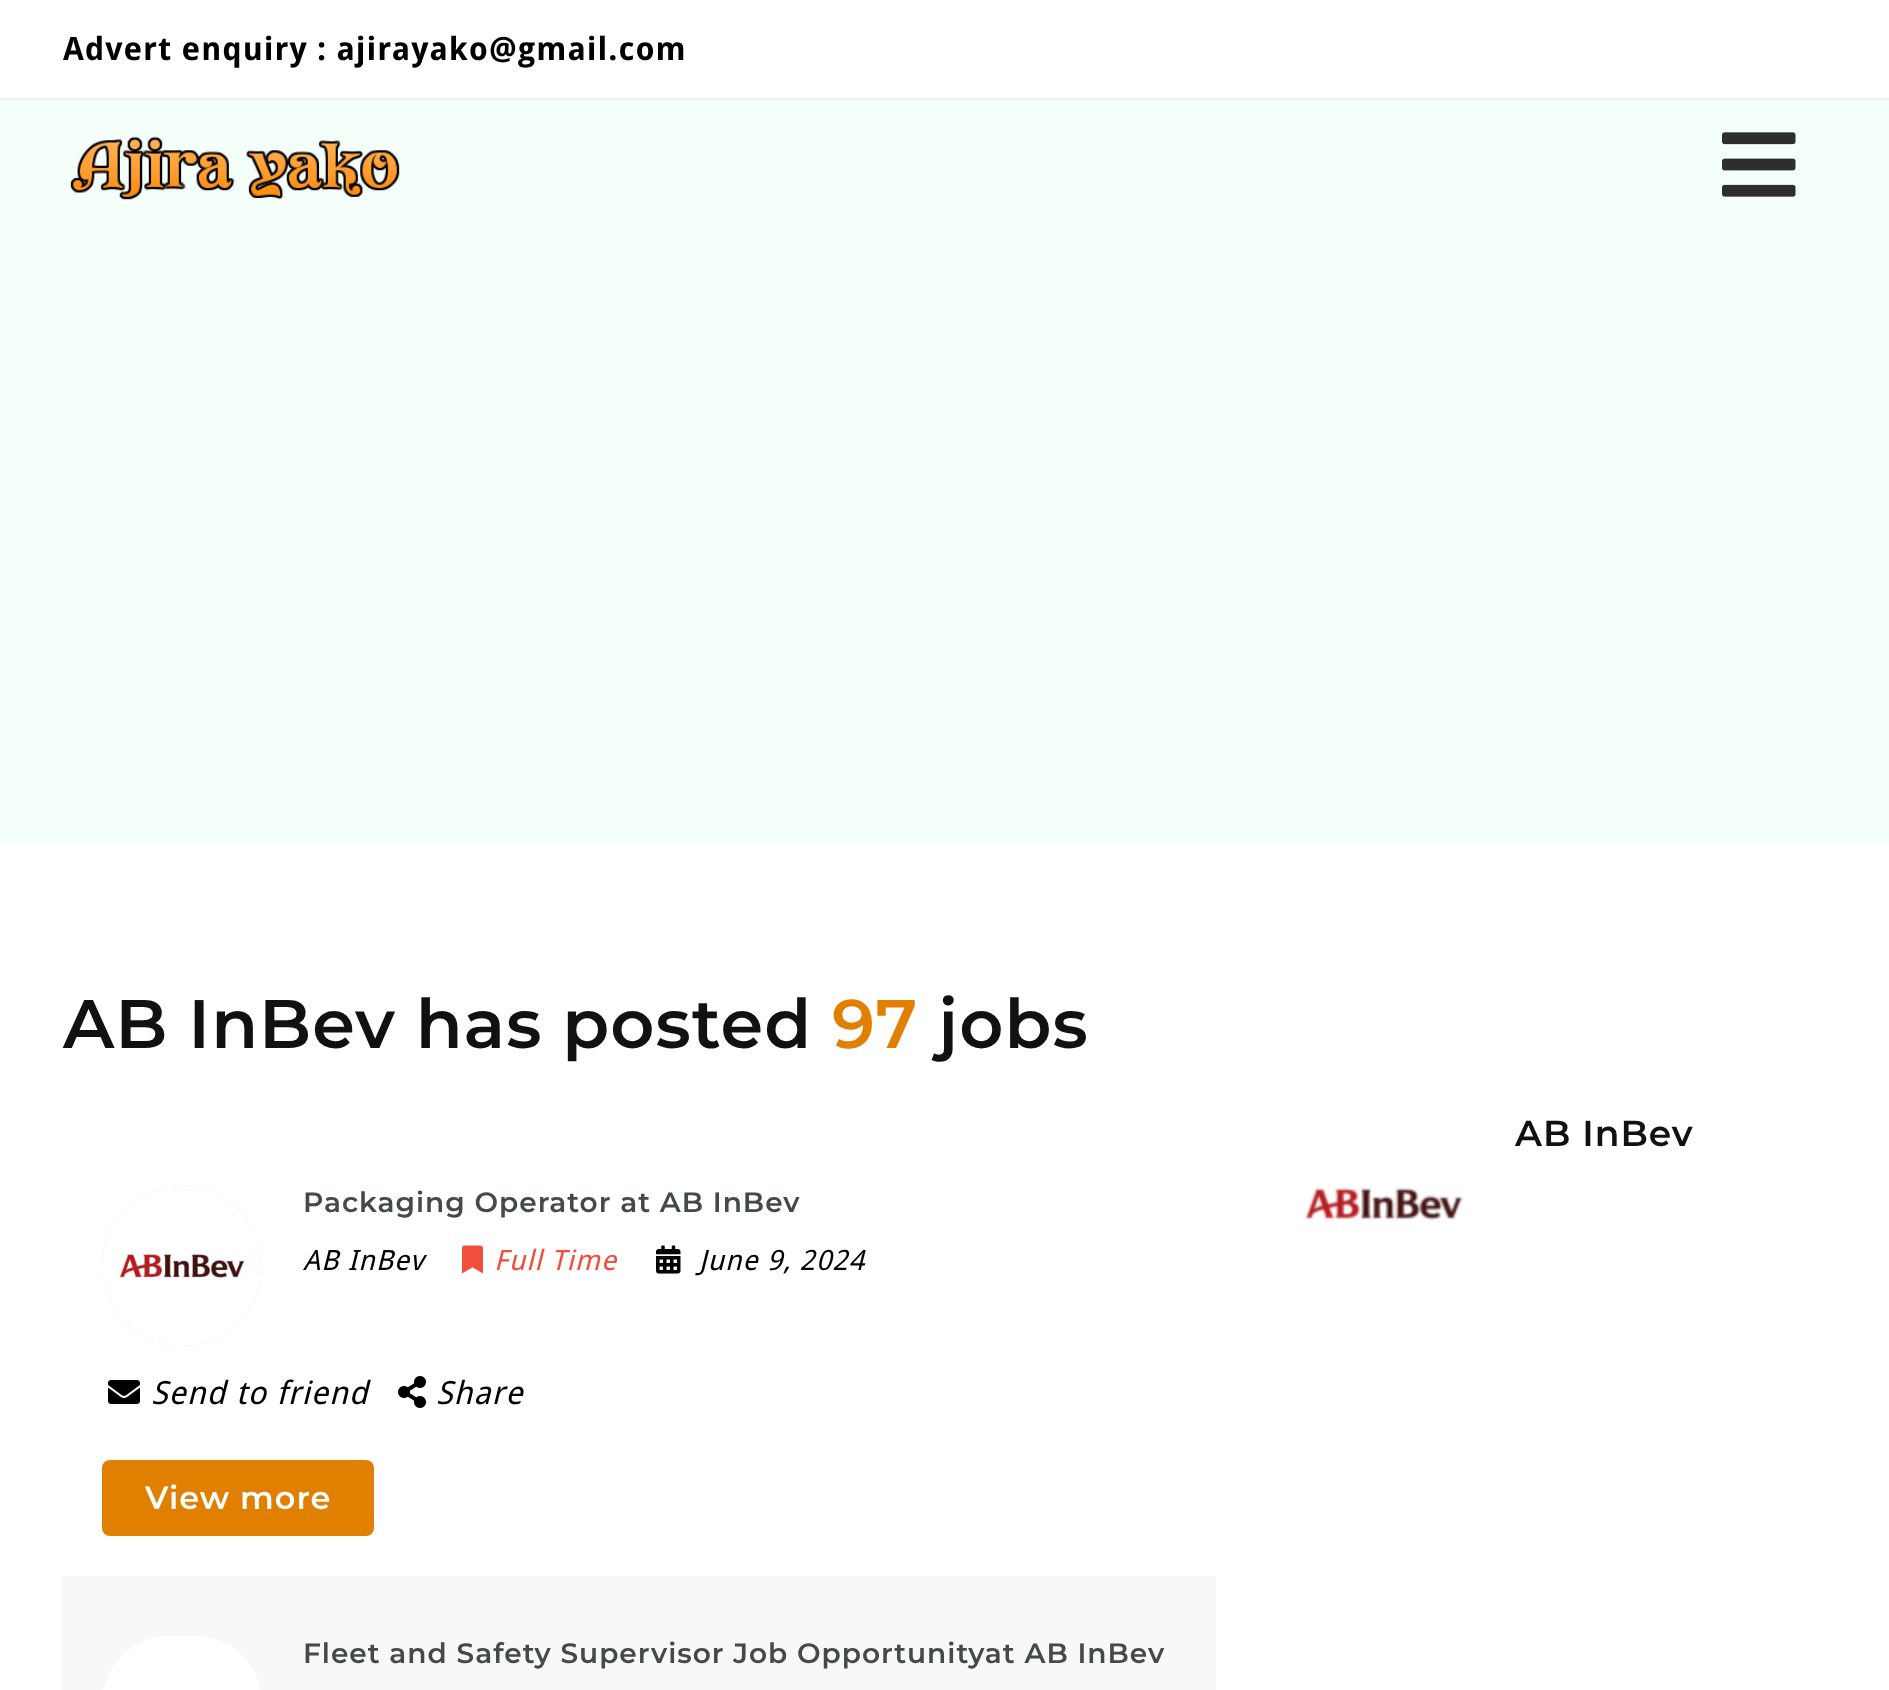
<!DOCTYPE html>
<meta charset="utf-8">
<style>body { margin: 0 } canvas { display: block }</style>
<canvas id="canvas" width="1889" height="1690"></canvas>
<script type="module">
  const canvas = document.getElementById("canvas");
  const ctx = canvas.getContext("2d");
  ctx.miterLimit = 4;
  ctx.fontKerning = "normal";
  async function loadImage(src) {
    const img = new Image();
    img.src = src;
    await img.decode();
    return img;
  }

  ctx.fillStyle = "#ffffff";
  ctx.fillRect(0, 0, 1889, 1690);
  ctx.fillStyle = "#f0f0f0";
  ctx.fillRect(0, 98, 1889, 2);
  ctx.letterSpacing = "1px";
  ctx.font = "bold 32px Droid Sans";
  ctx.fillStyle = "#000000";
  ctx.fillText("Advert enquiry : ajirayako@gmail.com", 63, 60);
  ctx.fillStyle = "#f5fffa";
  ctx.fillRect(0, 100, 1889, 744);
  ctx.drawImage(await loadImage("img1.png"), 70, 136, 330, 64);
  ctx.drawImage(await loadImage("img2.png"), 1722, 132, 74, 65);
  ctx.font = "600 68.5px Montserrat";
  ctx.fillStyle = "#111111";
  ctx.fillText("AB InBev has posted", 63, 1048);
  ctx.fillStyle = "#e07f00";
  ctx.fillText("97", 832, 1048);
  ctx.fillStyle = "#111111";
  ctx.fillText("jobs", 938, 1048);
  ctx.fillStyle = "#e7e7e7";
  ctx.beginPath();
  ctx.arc(182, 1266, 80, 0, Math.PI * 2);
  ctx.fill();
  ctx.drawImage(await loadImage("img3.png"), 102, 1186, 160, 160);
  ctx.font = "600 28px Montserrat";
  ctx.fillStyle = "#44494b";
  ctx.fillText("Packaging Operator at AB InBev", 303, 1212);
  ctx.font = "italic 28px Droid Sans";
  ctx.fillStyle = "#000000";
  ctx.fillText("AB InBev", 303, 1270);
  ctx.drawImage(await loadImage("img4.png"), 462, 1245, 21, 29);
  ctx.fillStyle = "#f14e3b";
  ctx.fillText("Full Time", 494, 1270);
  ctx.drawImage(await loadImage("img5.png"), 656, 1245, 25, 29);
  ctx.fillStyle = "#000000";
  ctx.fillText("June 9, 2024", 699, 1270);
  ctx.drawImage(await loadImage("img6.png"), 108, 1380, 32, 24);
  ctx.font = "italic 32px Droid Sans";
  ctx.fillText("Send to friend", 151, 1404);
  ctx.drawImage(await loadImage("img7.png"), 398, 1376, 28, 32);
  ctx.fillText("Share", 436, 1404);
  ctx.fillStyle = "#e07f00";
  ctx.beginPath();
  ctx.roundRect(102, 1460, 272, 76, 8);
  ctx.fill();
  ctx.font = "600 32px Montserrat";
  ctx.fillStyle = "#ffffff";
  ctx.fillText("View more", 145, 1509);
  ctx.fillStyle = "#f8f8f8";
  ctx.fillRect(62, 1576, 1154, 114);
  ctx.fillStyle = "#ffffff";
  ctx.beginPath();
  ctx.roundRect(102, 1636, 160, 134, 80);
  ctx.fill();
  ctx.font = "600 28px Montserrat";
  ctx.fillStyle = "#44494b";
  ctx.fillText("Fleet and Safety Supervisor Job Opportunityat AB InBev", 303, 1663);
  ctx.font = "600 36px Montserrat";
  ctx.fillStyle = "#111111";
  ctx.fillText("AB InBev", 1515, 1146);
  ctx.drawImage(await loadImage("img8.png"), 1305, 1187, 158, 34);
</script>
